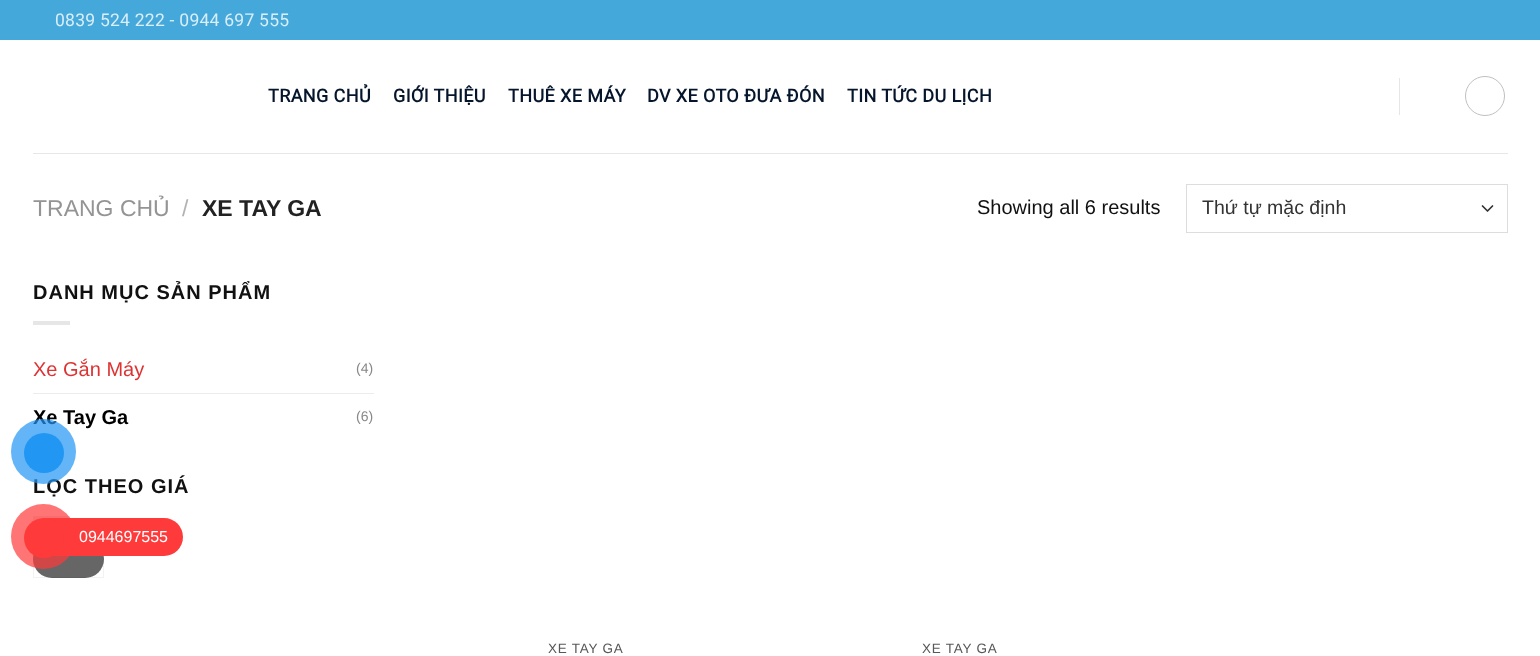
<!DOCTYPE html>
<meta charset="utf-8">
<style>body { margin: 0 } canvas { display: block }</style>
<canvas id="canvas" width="1540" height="656"></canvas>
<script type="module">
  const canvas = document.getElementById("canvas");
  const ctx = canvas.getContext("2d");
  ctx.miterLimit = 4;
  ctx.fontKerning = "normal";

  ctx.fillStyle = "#ffffff";
  ctx.fillRect(0, 0, 1540, 656);
  ctx.fillStyle = "#45a8db";
  ctx.fillRect(0, 0, 1540, 40);
  ctx.letterSpacing = "0.25px";
  ctx.font = "17.5px Roboto";
  ctx.fillStyle = "#daeef8";
  ctx.fillText("0839 524 222 - 0944 697 555", 55, 26);
  ctx.letterSpacing = "0.4px";
  ctx.font = "bold 18px Roboto";
  ctx.fillStyle = "#05152b";
  ctx.fillText("TRANG CHỦ", 268, 102);
  ctx.fillText("GIỚI THIỆU", 393, 102);
  ctx.fillText("THUÊ XE MÁY", 508, 102);
  ctx.fillText("DV XE OTO ĐƯA ĐÓN", 647, 102);
  ctx.fillText("TIN TỨC DU LỊCH", 847, 102);
  ctx.fillStyle = "#e6e6e6";
  ctx.fillRect(1399, 78, 1, 37);
  ctx.beginPath();
  ctx.arc(1485, 96, 19.5, 0, Math.PI * 2);
  ctx.strokeStyle = "#c0c0c0";
  ctx.stroke();
  ctx.fillStyle = "#e7e7e7";
  ctx.fillRect(33, 153, 1475, 1);
  ctx.letterSpacing = "0px";
  ctx.font = "23px Liberation Sans";
  ctx.fillStyle = "#949494";
  ctx.fillText("TRANG CHỦ", 33, 216);
  ctx.fillStyle = "#b2b2b2";
  ctx.fillText("/", 182, 216);
  ctx.font = "bold 23px Liberation Sans";
  ctx.fillStyle = "#222222";
  ctx.fillText("XE TAY GA", 202, 216);
  ctx.font = "20px Liberation Sans";
  ctx.fillStyle = "#111111";
  ctx.fillText("Showing all 6 results", 977, 214);
  ctx.beginPath();
  ctx.moveTo(1482.5, 206);
  ctx.lineTo(1487.5, 211);
  ctx.lineTo(1492.5, 206);
  ctx.strokeStyle = "#333333";
  ctx.lineWidth = 1.7;
  ctx.lineCap = "round";
  ctx.lineJoin = "round";
  ctx.stroke();
  ctx.strokeStyle = "#dddddd";
  ctx.lineWidth = 1;
  ctx.lineJoin = "miter";
  ctx.strokeRect(1186.5, 184.5, 321, 48);
  ctx.font = "19.5px Liberation Sans";
  ctx.fillStyle = "#333333";
  ctx.fillText("Thứ tự mặc định", 1202, 214);
  ctx.letterSpacing = "1px";
  ctx.font = "bold 20px Liberation Sans";
  ctx.fillStyle = "#111111";
  ctx.fillText("DANH MỤC SẢN PHẨM", 33, 299);
  ctx.fillStyle = "#e6e6e6";
  ctx.fillRect(33, 321, 37, 4);
  ctx.letterSpacing = "0px";
  ctx.font = "20px Liberation Sans";
  ctx.fillStyle = "#dd3333";
  ctx.fillText("Xe Gắn Máy", 33, 376);
  ctx.font = "14px Liberation Sans";
  ctx.fillStyle = "#888888";
  ctx.fillText("(4)", 356, 373);
  ctx.fillStyle = "#ececec";
  ctx.fillRect(33, 393, 341, 1);
  ctx.font = "bold 20px Liberation Sans";
  ctx.fillStyle = "#000000";
  ctx.fillText("Xe Tay Ga", 33, 424);
  ctx.font = "14px Liberation Sans";
  ctx.fillStyle = "#888888";
  ctx.fillText("(6)", 356, 421);
  ctx.letterSpacing = "1px";
  ctx.font = "bold 20px Liberation Sans";
  ctx.fillStyle = "#111111";
  ctx.fillText("LỌC THEO GIÁ", 33, 493);
  ctx.fillStyle = "#e6e6e6";
  ctx.fillRect(33, 516, 37, 4);
  ctx.fillStyle = "#666666";
  ctx.beginPath();
  ctx.roundRect(33, 540, 71, 38, 19);
  ctx.fill();
  ctx.strokeStyle = "rgba(0, 0, 0, 0.05)";
  ctx.strokeRect(33.5, 540.5, 70, 37);
  ctx.letterSpacing = "0.75px";
  ctx.font = "13.5px Liberation Sans";
  ctx.fillStyle = "#585858";
  ctx.fillText("XE TAY GA", 548, 653);
  ctx.fillText("XE TAY GA", 922, 653);
  ctx.fillStyle = "rgba(33, 150, 243, 0.7)";
  ctx.beginPath();
  ctx.arc(43.5, 451.5, 32.5, 0, Math.PI * 2);
  ctx.fill();
  ctx.fillStyle = "#2196f3";
  ctx.beginPath();
  ctx.arc(44, 453, 20, 0, Math.PI * 2);
  ctx.fill();
  ctx.fillStyle = "#ff3a3a";
  ctx.beginPath();
  ctx.roundRect(29, 518, 154, 38, 19);
  ctx.fill();
  ctx.fillStyle = "rgba(255, 58, 58, 0.7)";
  ctx.beginPath();
  ctx.arc(43.5, 536.5, 32.5, 0, Math.PI * 2);
  ctx.fill();
  ctx.fillStyle = "#ff3a3a";
  ctx.beginPath();
  ctx.arc(44, 538, 20, 0, Math.PI * 2);
  ctx.fill();
  ctx.letterSpacing = "0px";
  ctx.font = "16px Liberation Sans";
  ctx.fillStyle = "#ffffff";
  ctx.fillText("0944697555", 79, 542);
</script>
